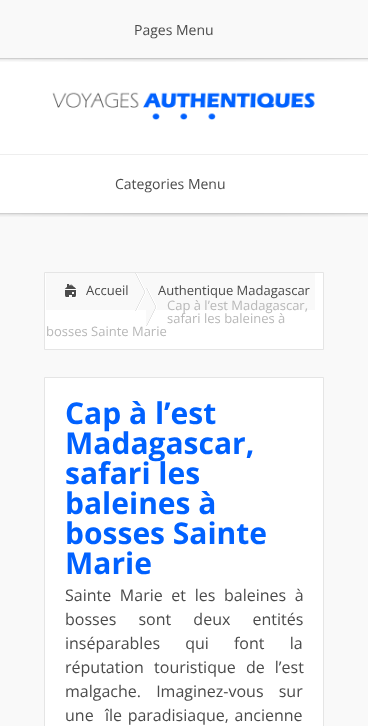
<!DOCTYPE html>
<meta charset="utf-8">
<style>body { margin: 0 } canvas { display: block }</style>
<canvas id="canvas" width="368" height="726"></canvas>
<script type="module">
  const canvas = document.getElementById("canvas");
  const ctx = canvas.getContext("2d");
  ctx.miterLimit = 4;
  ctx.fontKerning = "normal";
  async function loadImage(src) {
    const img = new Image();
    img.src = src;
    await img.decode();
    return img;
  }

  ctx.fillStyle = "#ffffff";
  ctx.fillRect(0, 0, 368, 726);
  ctx.fillStyle = "#f9f9f9";
  ctx.fillRect(0, 0, 368, 58);
  ctx.fillStyle = "#eeeeee";
  ctx.fillRect(0, 58, 368, 1);
  ctx.font = "14px Open Sans";
  ctx.fillStyle = "#4b4b4b";
  ctx.fillText("Pages Menu", 134, 35);
  ctx.drawImage(await loadImage("img1.png"), 0, 58, 368, 4);
  ctx.drawImage(await loadImage("img2.png"), 52, 92, 263, 28);
  ctx.fillStyle = "#eeeeee";
  ctx.fillRect(0, 154, 368, 1);
  ctx.fillRect(0, 213, 368, 1);
  ctx.fillStyle = "#4b4b4b";
  ctx.fillText("Categories Menu", 115, 189);
  ctx.fillStyle = "#f9f9f9";
  ctx.fillRect(0, 214, 368, 512);
  ctx.drawImage(await loadImage("img3.png"), 0, 213, 368, 4);
  ctx.fillStyle = "#ffffff";
  ctx.beginPath();
  ctx.rect(44.5, 272.5, 279, 77);
  ctx.fill();
  ctx.strokeStyle = "#e5e5e5";
  ctx.stroke();
  ctx.fillStyle = "#f9f9f9";
  ctx.fillRect(46, 273, 89, 37);
  ctx.drawImage(await loadImage("img4.png"), 64, 284, 13, 14);
  ctx.font = "13px Open Sans";
  ctx.fillStyle = "#4b4b4b";
  ctx.fillText("Accueil", 86, 295);
  ctx.drawImage(await loadImage("img5.png"), 135, 273, 11, 38);
  ctx.fillStyle = "#f9f9f9";
  ctx.fillRect(146, 273, 169, 37);
  ctx.drawImage(await loadImage("img6.png"), 146, 288, 11, 38);
  ctx.fillStyle = "#4b4b4b";
  ctx.fillText("Authentique Madagascar", 158, 295);
  ctx.fillStyle = "#b8b8b8";
  ctx.fillText("Cap à l’est Madagascar,", 167, 310);
  ctx.fillText("safari les baleines à", 167, 323);
  ctx.fillText("bosses Sainte Marie", 46, 336);
  ctx.fillStyle = "#ffffff";
  ctx.beginPath();
  ctx.rect(44.5, 377.5, 279, 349);
  ctx.fill();
  ctx.stroke();
  ctx.font = "bold 30px Open Sans";
  ctx.fillStyle = "#0061ff";
  ctx.fillText("Cap à l’est", 65, 424);
  ctx.fillText("Madagascar,", 65, 454);
  ctx.fillText("safari les", 65, 484);
  ctx.fillText("baleines à", 65, 514);
  ctx.fillText("bosses Sainte", 65, 544);
  ctx.fillText("Marie", 65, 574);
  ctx.wordSpacing = "4.5px";
  ctx.font = "16px Open Sans";
  ctx.fillStyle = "#4b4b4b";
  ctx.fillText("Sainte Marie et les baleines à", 65, 601);
  ctx.wordSpacing = "18px";
  ctx.fillText("bosses sont deux entités", 65, 625);
  ctx.wordSpacing = "21px";
  ctx.fillText("inséparables qui font la", 65, 649);
  ctx.wordSpacing = "6px";
  ctx.fillText("réputation touristique de l’est", 65, 673);
  ctx.wordSpacing = "11px";
  ctx.fillText("malgache. Imaginez-vous sur", 65, 697);
  ctx.wordSpacing = "1.5px";
  ctx.fillText("une  île paradisiaque, ancienne", 65, 721);
</script>
